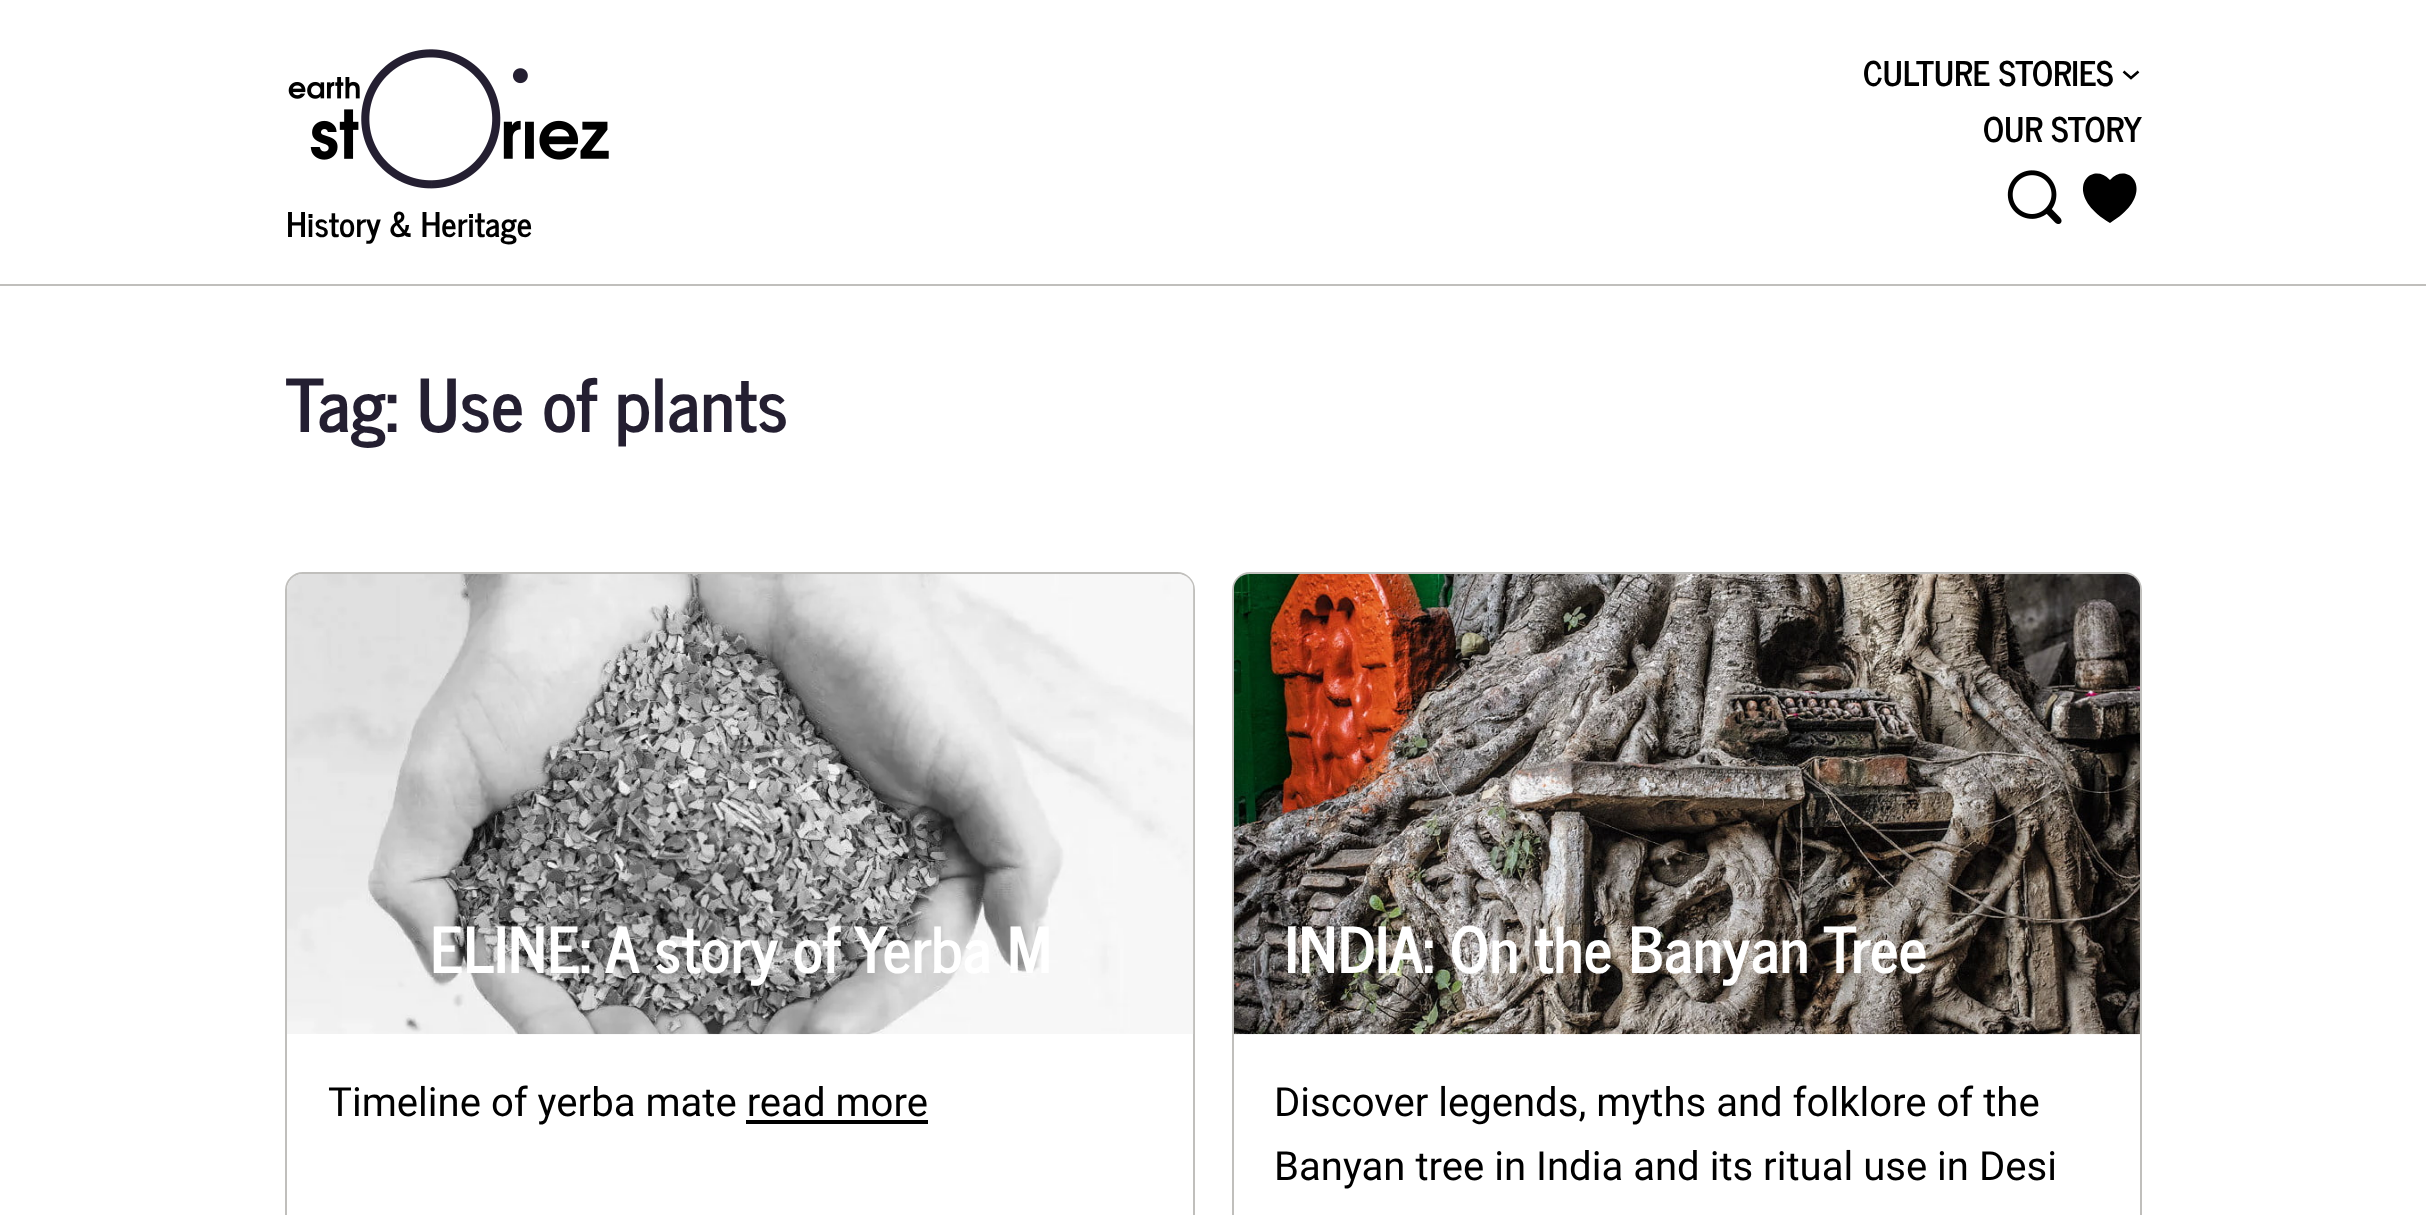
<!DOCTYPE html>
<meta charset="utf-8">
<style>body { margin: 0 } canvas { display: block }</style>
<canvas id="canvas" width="2426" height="1215"></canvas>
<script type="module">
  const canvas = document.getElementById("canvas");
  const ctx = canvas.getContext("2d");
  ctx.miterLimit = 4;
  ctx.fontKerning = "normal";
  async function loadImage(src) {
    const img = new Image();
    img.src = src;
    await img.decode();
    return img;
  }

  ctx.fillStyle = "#ffffff";
  ctx.fillRect(0, 0, 2426, 1215);
  ctx.fillStyle = "#c0bfbc";
  ctx.fillRect(0, 284, 2426, 2);
  ctx.font = "bold 33.75px News Cycle";
  ctx.fillStyle = "#000000";
  ctx.fillText("CULTURE STORIES", 1863, 86);
  ctx.beginPath();
  ctx.moveTo(2123.5, 71.5);
  ctx.lineTo(2131, 78);
  ctx.lineTo(2138.5, 71.5);
  ctx.strokeStyle = "#000000";
  ctx.lineWidth = 2.5;
  ctx.stroke();
  ctx.fillText("OUR STORY", 1983, 142);
  ctx.drawImage(await loadImage("img1.png"), 2007, 170, 55, 54);
  ctx.beginPath();
  ctx.moveTo(2110, 223);
  ctx.bezierCurveTo(2159, 194, 2129, 159, 2110, 180);
  ctx.closePath();
  ctx.moveTo(2110, 223);
  ctx.bezierCurveTo(2061, 194, 2090, 159, 2110, 180);
  ctx.closePath();
  ctx.fill();
  ctx.drawImage(await loadImage("img2.png"), 288, 49, 321, 140);
  ctx.fillText("History & Heritage", 286, 237);
  ctx.font = "bold 72.5px News Cycle";
  ctx.fillStyle = "#241f31";
  ctx.fillText("Tag: Use of plants", 286, 432);
  ctx.beginPath();
  ctx.roundRect(286, 573, 908, 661, 17);
  ctx.strokeStyle = "#c0bfbc";
  ctx.lineWidth = 2;
  ctx.stroke();
  ctx.drawImage(await loadImage("img3.png"), 287, 574, 907, 461);
  ctx.font = "bold 63px News Cycle";
  ctx.fillStyle = "#ffffff";
  ctx.fillText("ELINE: A story of Yerba M", 430, 973);
  ctx.font = "40.1px Roboto";
  ctx.fillStyle = "#000000";
  ctx.fillText("Timeline of yerba mate read more", 328, 1116);
  ctx.fillRect(746, 1120, 182, 4);
  ctx.beginPath();
  ctx.roundRect(1233, 573, 908, 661, 17);
  ctx.stroke();
  ctx.drawImage(await loadImage("img4.png"), 1234, 574, 906, 461);
  ctx.font = "bold 63px News Cycle";
  ctx.fillStyle = "#ffffff";
  ctx.fillText("INDIA: On the Banyan Tree", 1285, 973);
  ctx.font = "40.1px Roboto";
  ctx.fillStyle = "#000000";
  ctx.fillText("Discover legends, myths and folklore of the", 1274, 1116);
  ctx.fillText("Banyan tree in India and its ritual use in Desi", 1274, 1180);
</script>
